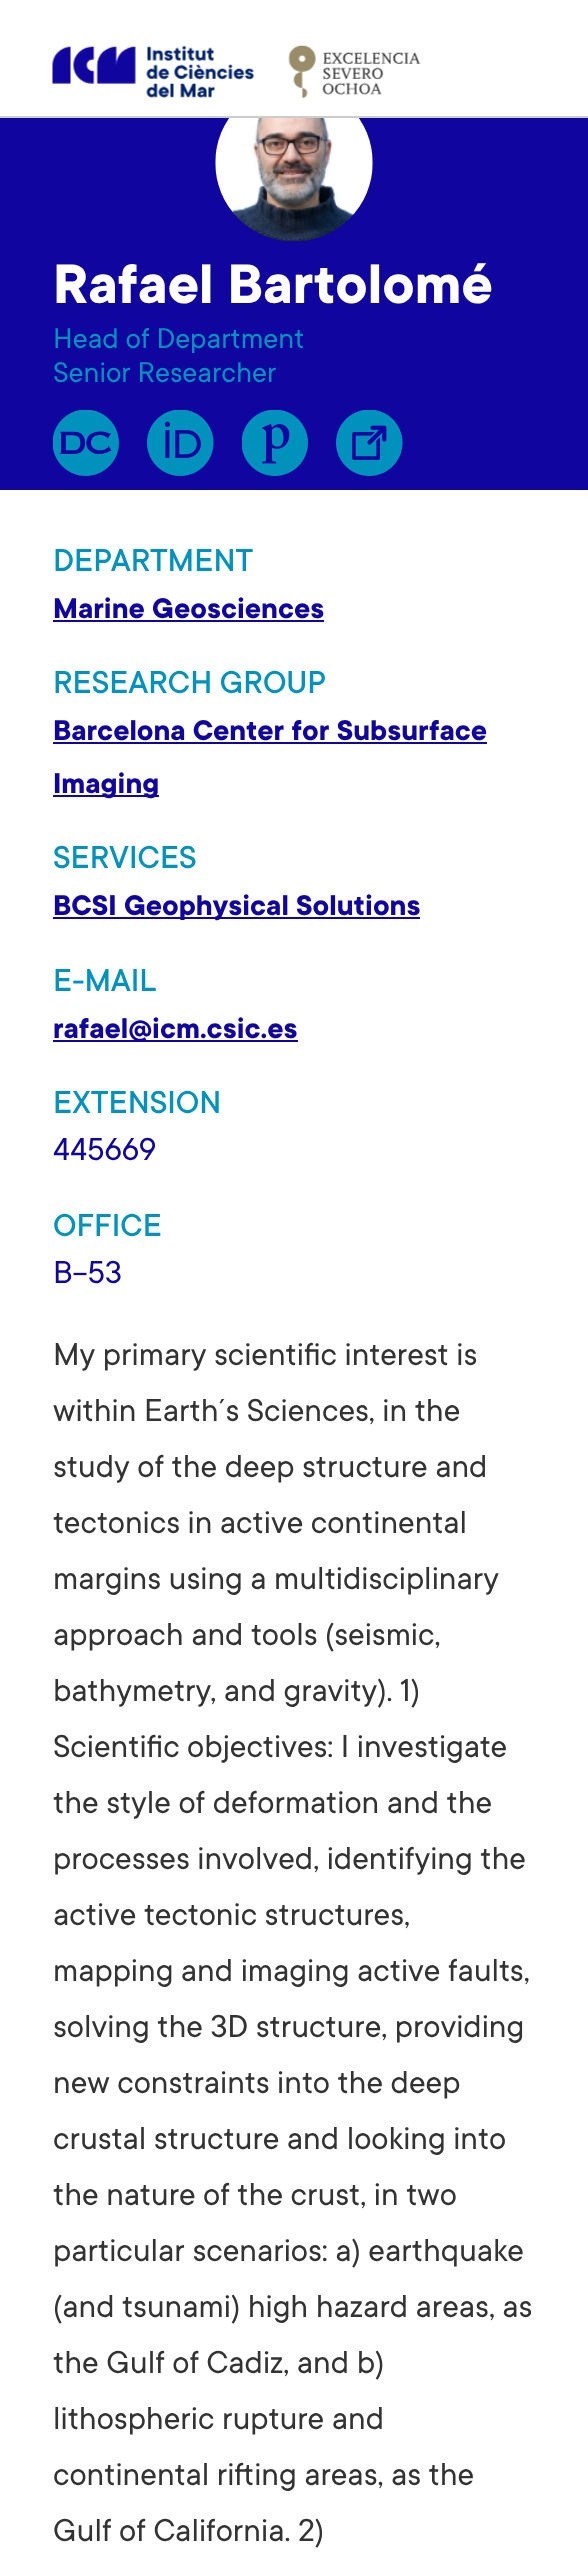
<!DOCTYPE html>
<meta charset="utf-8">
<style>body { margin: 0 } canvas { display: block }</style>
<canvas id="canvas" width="588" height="2570"></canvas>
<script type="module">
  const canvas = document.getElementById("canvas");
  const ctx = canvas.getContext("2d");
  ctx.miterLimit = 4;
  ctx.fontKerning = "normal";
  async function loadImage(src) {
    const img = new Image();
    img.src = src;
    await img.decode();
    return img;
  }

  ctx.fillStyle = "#10069f";
  ctx.fillRect(0, 0, 588, 2570);
  ctx.fillStyle = "#ffffff";
  ctx.fillRect(0, 0, 588, 116);
  ctx.fillStyle = "#cccccc";
  ctx.fillRect(0, 116, 588, 2);
  ctx.drawImage(await loadImage("img1.png"), 52, 45, 202, 53);
  ctx.drawImage(await loadImage("img2.png"), 288, 45, 133, 53);
  ctx.drawImage(await loadImage("img3.png"), 215, 118, 158, 124);
  ctx.font = "bold 61.25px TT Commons";
  ctx.fillStyle = "#ffffff";
  ctx.fillText("Rafael Bartolomé", 53, 303);
  ctx.font = "31.5px TT Commons";
  ctx.fillStyle = "#0092bc";
  ctx.fillText("Head of Department", 53, 348);
  ctx.fillText("Senior Researcher", 53, 382);
  ctx.drawImage(await loadImage("img4.png"), 53, 410, 66, 66);
  ctx.drawImage(await loadImage("img5.png"), 147, 410, 67, 66);
  ctx.drawImage(await loadImage("img6.png"), 242, 410, 66, 66);
  ctx.drawImage(await loadImage("img7.png"), 336, 410, 67, 66);
  ctx.fillStyle = "#ffffff";
  ctx.fillRect(0, 490, 588, 2080);
  ctx.font = "500 35px TT Commons";
  ctx.fillStyle = "#0092bc";
  ctx.fillText("DEPARTMENT", 53, 571);
  ctx.font = "bold 31.5px TT Commons";
  ctx.fillStyle = "#10069f";
  ctx.fillText("Marine Geosciences", 53, 618);
  ctx.fillRect(53, 620, 271, 2);
  ctx.font = "500 35px TT Commons";
  ctx.fillStyle = "#0092bc";
  ctx.fillText("RESEARCH GROUP", 53, 693);
  ctx.font = "bold 31.5px TT Commons";
  ctx.fillStyle = "#10069f";
  ctx.fillText("Barcelona Center for Subsurface", 53, 740);
  ctx.fillRect(53, 742, 434, 2);
  ctx.fillRect(53, 795, 106, 2);
  ctx.fillText("Imaging", 53, 793);
  ctx.font = "500 35px TT Commons";
  ctx.fillStyle = "#0092bc";
  ctx.fillText("SERVICES", 53, 868);
  ctx.fillStyle = "#10069f";
  ctx.fillRect(53, 917, 367, 2);
  ctx.font = "bold 31.5px TT Commons";
  ctx.fillText("BCSI Geophysical Solutions", 53, 915);
  ctx.font = "500 35px TT Commons";
  ctx.fillStyle = "#0092bc";
  ctx.fillText("E-MAIL", 53, 991);
  ctx.fillStyle = "#10069f";
  ctx.fillRect(53, 1040, 245, 2);
  ctx.font = "bold 31.5px TT Commons";
  ctx.fillText("rafael@icm.csic.es", 53, 1038);
  ctx.font = "500 35px TT Commons";
  ctx.fillStyle = "#0092bc";
  ctx.fillText("EXTENSION", 53, 1113);
  ctx.font = "35px TT Commons";
  ctx.fillStyle = "#10069f";
  ctx.fillText("445669", 53, 1160);
  ctx.font = "500 35px TT Commons";
  ctx.fillStyle = "#0092bc";
  ctx.fillText("OFFICE", 53, 1236);
  ctx.font = "35px TT Commons";
  ctx.fillStyle = "#10069f";
  ctx.fillText("B-53", 53, 1283);
  ctx.fillStyle = "#333333";
  ctx.fillText("My primary scientific interest is", 53, 1365);
  ctx.fillText("within Earth´s Sciences, in the", 53, 1421);
  ctx.fillText("study of the deep structure and", 53, 1477);
  ctx.fillText("tectonics in active continental", 53, 1533);
  ctx.fillText("margins using a multidisciplinary", 53, 1589);
  ctx.fillText("approach and tools (seismic,", 53, 1645);
  ctx.fillText("bathymetry, and gravity). 1)", 53, 1701);
  ctx.fillText("Scientific objectives: I investigate", 53, 1757);
  ctx.fillText("the style of deformation and the", 53, 1813);
  ctx.fillText("processes involved, identifying the", 53, 1869);
  ctx.fillText("active tectonic structures,", 53, 1925);
  ctx.fillText("mapping and imaging active faults,", 53, 1981);
  ctx.fillText("solving the 3D structure, providing", 53, 2037);
  ctx.fillText("new constraints into the deep", 53, 2093);
  ctx.fillText("crustal structure and looking into", 53, 2149);
  ctx.fillText("the nature of the crust, in two", 53, 2205);
  ctx.fillText("particular scenarios: a) earthquake", 53, 2261);
  ctx.fillText("(and tsunami) high hazard areas, as", 53, 2317);
  ctx.fillText("the Gulf of Cadiz, and b)", 53, 2373);
  ctx.fillText("lithospheric rupture and", 53, 2429);
  ctx.fillText("continental rifting areas, as the", 53, 2485);
  ctx.fillText("Gulf of California. 2)", 53, 2541);
</script>
